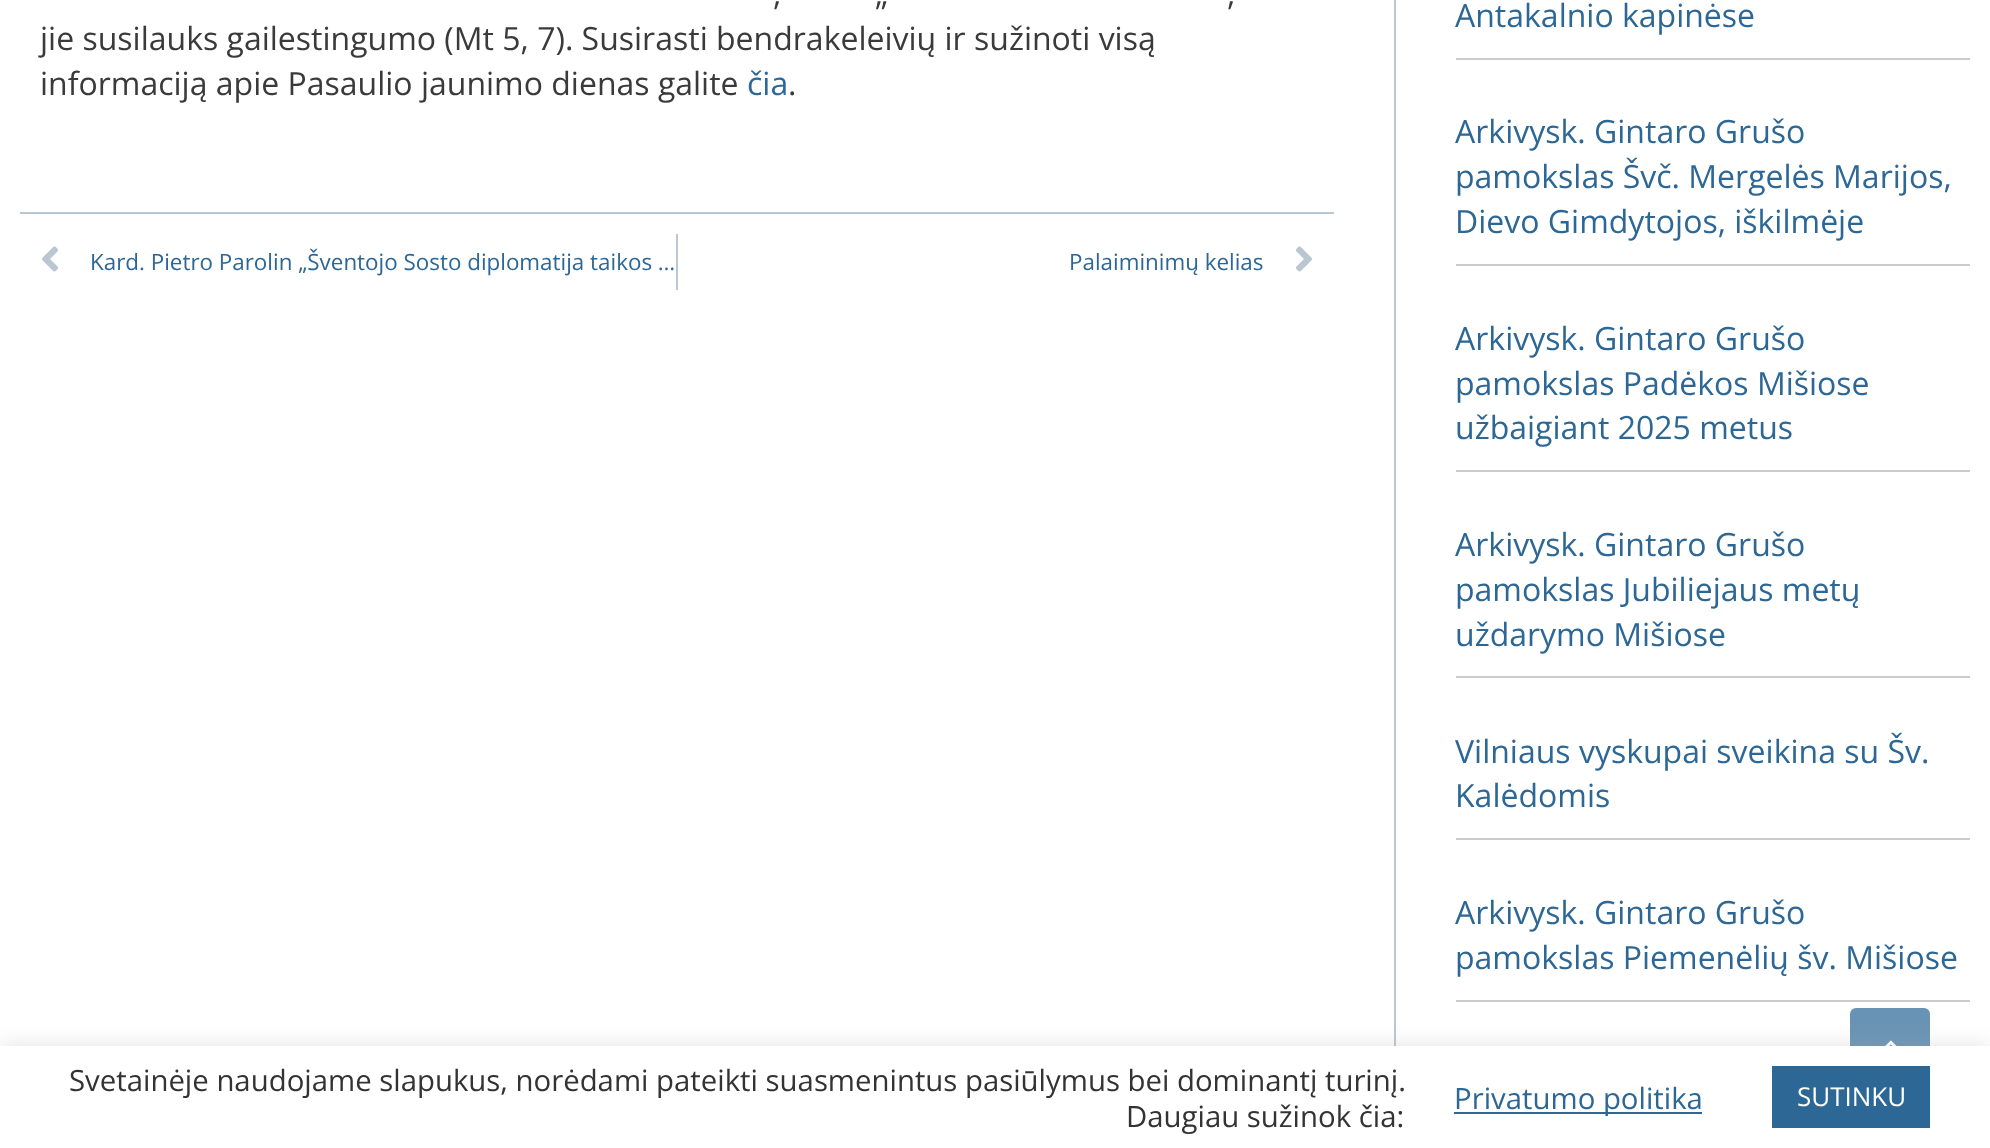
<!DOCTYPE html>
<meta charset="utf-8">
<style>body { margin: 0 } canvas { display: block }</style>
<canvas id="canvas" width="1990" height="1148"></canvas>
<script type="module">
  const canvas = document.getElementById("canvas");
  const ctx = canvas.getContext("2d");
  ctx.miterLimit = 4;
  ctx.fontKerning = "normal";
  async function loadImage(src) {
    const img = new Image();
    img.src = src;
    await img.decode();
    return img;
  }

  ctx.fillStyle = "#ffffff";
  ctx.fillRect(0, 0, 1990, 1148);
  ctx.font = "32px Open Sans";
  ctx.fillStyle = "#3a3a3a";
  ctx.fillText(",", 773, 5);
  ctx.fillText("„", 875, 5);
  ctx.fillText(",", 1227, 5);
  ctx.fillText("jie susilauks gailestingumo (Mt 5, 7). Susirasti bendrakeleivių ir sužinoti visą", 40, 50);
  ctx.fillText("informaciją apie Pasaulio jaunimo dienas galite", 40, 95);
  ctx.fillStyle = "#2c6795";
  ctx.fillText("čia", 747, 95);
  ctx.fillStyle = "#3a3a3a";
  ctx.fillText(".", 788, 95);
  ctx.fillStyle = "#b8c7d2";
  ctx.fillRect(20, 212, 1314, 2);
  ctx.drawImage(await loadImage("img1.png"), 42, 246, 16, 26);
  ctx.font = "22.4px Open Sans";
  ctx.fillStyle = "#2c6795";
  ctx.fillText("Kard. Pietro Parolin „Šventojo Sosto diplomatija taikos …", 90, 270);
  ctx.fillStyle = "#b8c7d2";
  ctx.fillRect(676, 234, 2, 56);
  ctx.fillStyle = "#2c6795";
  ctx.fillText("Palaiminimų kelias", 1069, 270);
  ctx.drawImage(await loadImage("img2.png"), 1296, 246, 16, 26);
  ctx.fillStyle = "#b8c7d2";
  ctx.fillRect(1394, 0, 2, 1046);
  ctx.fillStyle = "#cccccc";
  ctx.fillRect(1456, 58, 514, 2);
  ctx.font = "32px Open Sans";
  ctx.fillStyle = "#2c6795";
  ctx.fillText("Antakalnio kapinėse", 1455, 27);
  ctx.fillStyle = "#cccccc";
  ctx.fillRect(1456, 264, 514, 2);
  ctx.fillStyle = "#2c6795";
  ctx.fillText("Arkivysk. Gintaro Grušo", 1455, 143);
  ctx.fillText("pamokslas Švč. Mergelės Marijos,", 1455, 188);
  ctx.fillText("Dievo Gimdytojos, iškilmėje", 1455, 233);
  ctx.fillStyle = "#cccccc";
  ctx.fillRect(1456, 470, 514, 2);
  ctx.fillStyle = "#2c6795";
  ctx.fillText("Arkivysk. Gintaro Grušo", 1455, 350);
  ctx.fillText("pamokslas Padėkos Mišiose", 1455, 395);
  ctx.fillText("užbaigiant 2025 metus", 1455, 439);
  ctx.fillStyle = "#cccccc";
  ctx.fillRect(1456, 676, 514, 2);
  ctx.fillStyle = "#2c6795";
  ctx.fillText("Arkivysk. Gintaro Grušo", 1455, 556);
  ctx.fillText("pamokslas Jubiliejaus metų", 1455, 601);
  ctx.fillText("uždarymo Mišiose", 1455, 646);
  ctx.fillStyle = "#cccccc";
  ctx.fillRect(1456, 838, 514, 2);
  ctx.fillStyle = "#2c6795";
  ctx.fillText("Vilniaus vyskupai sveikina su Šv.", 1455, 763);
  ctx.fillText("Kalėdomis", 1455, 807);
  ctx.fillStyle = "#cccccc";
  ctx.fillRect(1456, 1000, 514, 2);
  ctx.fillStyle = "#2c6795";
  ctx.fillText("Arkivysk. Gintaro Grušo", 1455, 924);
  ctx.fillText("pamokslas Piemenėlių šv. Mišiose", 1455, 969);
  ctx.fillStyle = "rgba(44, 103, 149, 0.71)";
  ctx.beginPath();
  ctx.roundRect(1850, 1008, 80, 80, 6);
  ctx.fill();
  ctx.drawImage(await loadImage("img3.png"), 1885, 1040, 12, 6);
  ctx.fillStyle = "rgba(172, 171, 171, 0.3)";
  ctx.filter = "blur(10px)";
  ctx.beginPath();
  ctx.rect(0, 1044, 1990, 102);
  ctx.fill();
  ctx.filter = "none";
  ctx.fillStyle = "#ffffff";
  ctx.fillRect(0, 1046, 1990, 102);
  ctx.font = "29.35px Open Sans";
  ctx.fillStyle = "#333333";
  ctx.fillText("Svetainėje naudojame slapukus, norėdami pateikti suasmenintus pasiūlymus bei dominantį turinį.", 69, 1091);
  ctx.fillText("Daugiau sužinok čia:", 1126, 1127);
  ctx.fillStyle = "#2c6795";
  ctx.fillRect(1454, 1112, 248, 2);
  ctx.fillText("Privatumo politika", 1454, 1109);
  ctx.fillRect(1772, 1066, 158, 62);
  ctx.font = "26px Open Sans";
  ctx.fillStyle = "#ffffff";
  ctx.fillText("SUTINKU", 1797, 1106);
</script>
